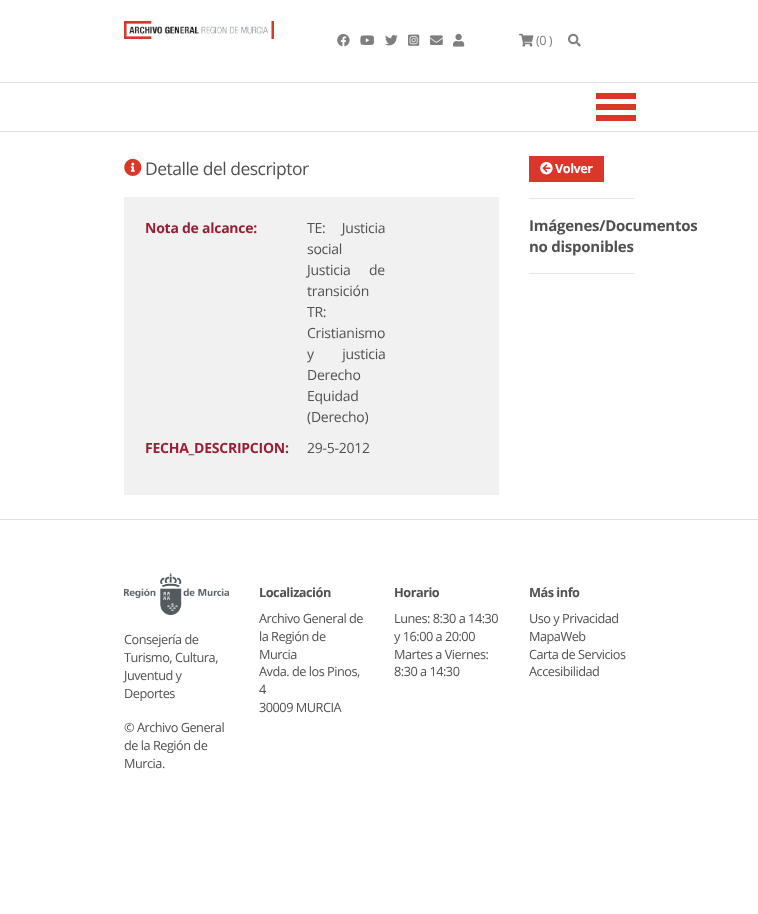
<!DOCTYPE html>
<meta charset="utf-8">
<style>body { margin: 0 } canvas { display: block }</style>
<canvas id="canvas" width="758" height="914"></canvas>
<script type="module">
  const canvas = document.getElementById("canvas");
  const ctx = canvas.getContext("2d");
  ctx.miterLimit = 4;
  ctx.fontKerning = "normal";
  async function loadImage(src) {
    const img = new Image();
    img.src = src;
    await img.decode();
    return img;
  }

  ctx.fillStyle = "#ffffff";
  ctx.fillRect(0, 0, 758, 914);
  ctx.drawImage(await loadImage("img1.png"), 124, 21, 150, 18);
  ctx.drawImage(await loadImage("img2.png"), 337, 34, 13, 13);
  ctx.drawImage(await loadImage("img3.png"), 360, 35, 14, 10);
  ctx.drawImage(await loadImage("img4.png"), 385, 35, 13, 11);
  ctx.drawImage(await loadImage("img5.png"), 408, 34, 12, 12);
  ctx.drawImage(await loadImage("img6.png"), 430, 35, 13, 10);
  ctx.drawImage(await loadImage("img7.png"), 453, 33, 12, 14);
  ctx.drawImage(await loadImage("img8.png"), 519, 33, 15, 14);
  ctx.letterSpacing = "-0.5px";
  ctx.font = "12.75px Open Sans";
  ctx.fillStyle = "#7f7f7f";
  ctx.fillText("(0 )", 536, 45);
  ctx.drawImage(await loadImage("img9.png"), 568, 33, 13, 14);
  ctx.fillStyle = "#dee2e6";
  ctx.fillRect(0, 82, 758, 1);
  ctx.fillRect(0, 131, 758, 1);
  ctx.fillStyle = "#db362a";
  ctx.fillRect(596, 93, 40, 6);
  ctx.fillRect(596, 104, 40, 6);
  ctx.fillRect(596, 115, 40, 6);
  ctx.drawImage(await loadImage("img10.png"), 124, 158, 18, 18);
  ctx.font = "17.5px Open Sans";
  ctx.fillStyle = "#515151";
  ctx.fillText("Detalle del descriptor", 145, 175);
  ctx.fillStyle = "#f1f1f1";
  ctx.fillRect(124, 197, 375, 298);
  ctx.letterSpacing = "-0.25px";
  ctx.font = "bold 14px Open Sans";
  ctx.fillStyle = "#981f36";
  ctx.fillText("Nota de alcance:", 145, 233);
  ctx.wordSpacing = "13px";
  ctx.font = "14px Open Sans";
  ctx.fillStyle = "#515151";
  ctx.fillText("TE: Justicia", 307, 233);
  ctx.wordSpacing = "0px";
  ctx.fillText("social", 307, 254);
  ctx.wordSpacing = "15px";
  ctx.fillText("Justicia de", 307, 275);
  ctx.wordSpacing = "0px";
  ctx.fillText("transición", 307, 296);
  ctx.fillText("TR:", 307, 317);
  ctx.fillText("Cristianismo", 307, 338);
  ctx.wordSpacing = "25px";
  ctx.fillText("y justicia", 307, 359);
  ctx.wordSpacing = "0px";
  ctx.fillText("Derecho", 307, 380);
  ctx.fillText("Equidad", 307, 401);
  ctx.fillText("(Derecho)", 307, 422);
  ctx.font = "bold 14px Open Sans";
  ctx.fillStyle = "#981f36";
  ctx.fillText("FECHA_DESCRIPCION:", 145, 453);
  ctx.font = "14px Open Sans";
  ctx.fillStyle = "#515151";
  ctx.fillText("29-5-2012", 307, 453);
  ctx.fillStyle = "#db362a";
  ctx.fillRect(529, 156, 75, 26);
  ctx.drawImage(await loadImage("img11.png"), 540, 162, 13, 13);
  ctx.letterSpacing = "-0.5px";
  ctx.font = "bold 12.75px Open Sans";
  ctx.fillStyle = "#ffffff";
  ctx.fillText("Volver", 555, 173);
  ctx.fillStyle = "#e6e6e6";
  ctx.fillRect(529, 198, 105, 1);
  ctx.letterSpacing = "-0.25px";
  ctx.font = "bold 15px Open Sans";
  ctx.fillStyle = "#515151";
  ctx.fillText("Imágenes/Documentos", 529, 231);
  ctx.fillText("no disponibles", 529, 252);
  ctx.fillStyle = "#e6e6e6";
  ctx.fillRect(529, 273, 105, 1);
  ctx.fillStyle = "#dee2e6";
  ctx.fillRect(0, 519, 758, 1);
  ctx.drawImage(await loadImage("img12.png"), 124, 573, 105, 42);
  ctx.letterSpacing = "-0.5px";
  ctx.font = "12.75px Open Sans";
  ctx.fillStyle = "#515151";
  ctx.fillText("Consejería de", 124, 644);
  ctx.fillText("Turismo, Cultura,", 124, 662);
  ctx.fillText("Juventud y", 124, 680);
  ctx.fillText("Deportes", 124, 698);
  ctx.fillText("© Archivo General", 124, 732);
  ctx.fillText("de la Región de", 124, 750);
  ctx.fillText("Murcia.", 124, 768);
  ctx.font = "bold 12.75px Open Sans";
  ctx.fillText("Localización", 259, 597);
  ctx.font = "12.75px Open Sans";
  ctx.fillText("Archivo General de", 259, 623);
  ctx.fillText("la Región de", 259, 641);
  ctx.fillText("Murcia", 259, 659);
  ctx.fillText("Avda. de los Pinos,", 259, 676);
  ctx.fillText("4", 259, 694);
  ctx.fillText("30009 MURCIA", 259, 712);
  ctx.font = "bold 12.75px Open Sans";
  ctx.fillText("Horario", 394, 597);
  ctx.font = "12.75px Open Sans";
  ctx.fillText("Lunes: 8:30 a 14:30", 394, 623);
  ctx.fillText("y 16:00 a 20:00", 394, 641);
  ctx.fillText("Martes a Viernes:", 394, 659);
  ctx.fillText("8:30 a 14:30", 394, 676);
  ctx.font = "bold 12.75px Open Sans";
  ctx.fillText("Más info", 529, 597);
  ctx.font = "12.75px Open Sans";
  ctx.fillText("Uso y Privacidad", 529, 623);
  ctx.fillText("MapaWeb", 529, 641);
  ctx.fillText("Carta de Servicios", 529, 659);
  ctx.fillText("Accesibilidad", 529, 676);
</script>
